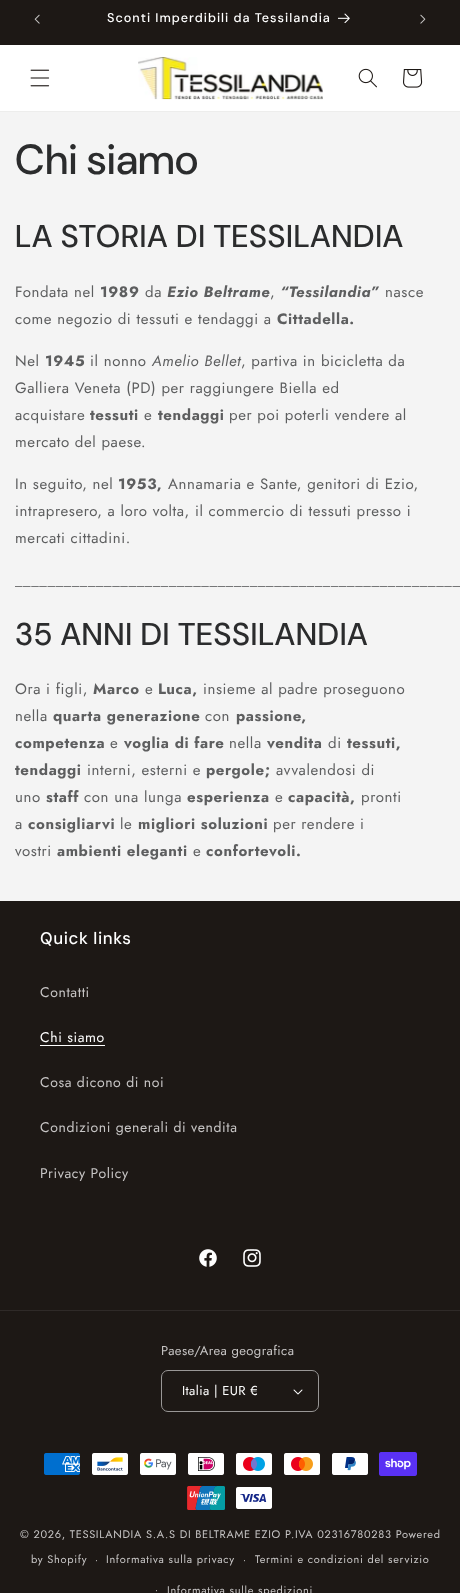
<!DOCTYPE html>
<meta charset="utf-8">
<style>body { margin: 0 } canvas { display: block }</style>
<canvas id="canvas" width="460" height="1593"></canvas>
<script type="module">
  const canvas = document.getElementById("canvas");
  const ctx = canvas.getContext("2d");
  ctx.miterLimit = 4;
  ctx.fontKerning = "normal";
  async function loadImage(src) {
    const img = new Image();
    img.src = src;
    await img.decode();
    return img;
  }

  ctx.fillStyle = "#f4f4f4";
  ctx.fillRect(0, 0, 460, 1593);
  ctx.fillStyle = "#1d1815";
  ctx.fillRect(0, 0, 460, 45);
  ctx.drawImage(await loadImage("img1.png"), 34, 14, 6, 10);
  ctx.letterSpacing = "1px";
  ctx.font = "500 12.6px 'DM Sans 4'";
  ctx.fillStyle = "#ffffff";
  ctx.fillText("Sconti Imperdibili da Tessilandia", 107, 22);
  ctx.drawImage(await loadImage("img2.png"), 338, 13, 12, 10);
  ctx.drawImage(await loadImage("img3.png"), 420, 14, 6, 10);
  ctx.fillRect(0, 45, 460, 66);
  ctx.fillStyle = "#ededec";
  ctx.fillRect(0, 111, 460, 1);
  ctx.drawImage(await loadImage("img4.png"), 30, 69, 20, 18);
  ctx.drawImage(await loadImage("img5.png"), 138, 57, 185, 43);
  ctx.drawImage(await loadImage("img6.png"), 358, 68, 19, 20);
  ctx.drawImage(await loadImage("img7.png"), 403, 69, 20, 19);
  ctx.letterSpacing = "0.6px";
  ctx.font = "500 42px DM Sans";
  ctx.fillStyle = "#2b2c2d";
  ctx.fillText("Chi siamo", 15, 174);
  ctx.font = "500 31.5px 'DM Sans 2'";
  ctx.fillText("LA STORIA DI TESSILANDIA", 15, 247);
  ctx.font = "15px Jost";
  ctx.fillStyle = "#5d5e5f";
  ctx.fillText("Fondata nel", 15, 297);
  ctx.font = "bold 15px Jost";
  ctx.fillText("1989", 100, 297);
  ctx.font = "15px Jost";
  ctx.fillText("da", 145, 297);
  ctx.font = "italic bold 15px Jost";
  ctx.fillText("Ezio Beltrame", 167, 297);
  ctx.font = "15px Jost";
  ctx.fillText(",", 270, 297);
  ctx.font = "italic bold 15px Jost";
  ctx.fillText("“Tessilandia”", 280, 297);
  ctx.font = "15px Jost";
  ctx.fillText("nasce", 385, 297);
  ctx.fillText("come negozio di tessuti e tendaggi a", 15, 324);
  ctx.font = "bold 15px Jost";
  ctx.fillText("Cittadella.", 277, 324);
  ctx.font = "15px Jost";
  ctx.fillText("Nel", 15, 366);
  ctx.font = "bold 15px Jost";
  ctx.fillText("1945", 45, 366);
  ctx.font = "15px Jost";
  ctx.fillText("il nonno", 90, 366);
  ctx.font = "italic 15px Jost";
  ctx.fillText("Amelio Bellet", 152, 366);
  ctx.font = "15px Jost";
  ctx.fillText(", partiva in bicicletta da", 241, 366);
  ctx.fillText("Galliera Veneta (PD) per raggiungere Biella ed", 15, 393);
  ctx.fillText("acquistare", 15, 420);
  ctx.font = "bold 15px Jost";
  ctx.fillText("tessuti", 90, 420);
  ctx.font = "15px Jost";
  ctx.fillText("e", 144, 420);
  ctx.font = "bold 15px Jost";
  ctx.fillText("tendaggi", 158, 420);
  ctx.font = "15px Jost";
  ctx.fillText("per poi poterli vendere al", 229, 420);
  ctx.fillText("mercato del paese.", 15, 447);
  ctx.fillText("In seguito, nel", 15, 489);
  ctx.font = "bold 15px Jost";
  ctx.fillText("1953,", 118, 489);
  ctx.font = "15px Jost";
  ctx.fillText("Annamaria e Sante, genitori di Ezio,", 168, 489);
  ctx.fillText("intrapresero, a loro volta, il commercio di tessuti presso i", 15, 516);
  ctx.fillText("mercati cittadini.", 15, 543);
  ctx.fillText("_______________________________________________________", 15, 585);
  ctx.font = "500 31.5px 'DM Sans 2'";
  ctx.fillStyle = "#2b2c2d";
  ctx.fillText("35 ANNI DI TESSILANDIA", 15, 645);
  ctx.font = "15px Jost";
  ctx.fillStyle = "#5d5e5f";
  ctx.fillText("Ora i figli,", 15, 694);
  ctx.font = "bold 15px Jost";
  ctx.fillText("Marco", 93, 694);
  ctx.font = "15px Jost";
  ctx.fillText("e", 145, 694);
  ctx.font = "bold 15px Jost";
  ctx.fillText("Luca,", 158, 694);
  ctx.font = "15px Jost";
  ctx.fillText("insieme al padre proseguono", 203, 694);
  ctx.fillText("nella", 15, 721);
  ctx.font = "bold 15px Jost";
  ctx.fillText("quarta generazione", 53, 721);
  ctx.font = "15px Jost";
  ctx.fillText("con", 205, 721);
  ctx.font = "bold 15px Jost";
  ctx.fillText("passione,", 236, 721);
  ctx.fillText("competenza", 15, 748);
  ctx.font = "15px Jost";
  ctx.fillText("e", 110, 748);
  ctx.font = "bold 15px Jost";
  ctx.fillText("voglia di fare", 124, 748);
  ctx.font = "15px Jost";
  ctx.fillText("nella", 229, 748);
  ctx.font = "bold 15px Jost";
  ctx.fillText("vendita", 267, 748);
  ctx.font = "15px Jost";
  ctx.fillText("di", 328, 748);
  ctx.font = "bold 15px Jost";
  ctx.fillText("tessuti,", 347, 748);
  ctx.fillText("tendaggi", 15, 775);
  ctx.font = "15px Jost";
  ctx.fillText("interni, esterni e", 87, 775);
  ctx.font = "bold 15px Jost";
  ctx.fillText("pergole;", 206, 775);
  ctx.font = "15px Jost";
  ctx.fillText("avvalendosi di", 276, 775);
  ctx.fillText("uno", 15, 802);
  ctx.font = "bold 15px Jost";
  ctx.fillText("staff", 46, 802);
  ctx.font = "15px Jost";
  ctx.fillText("con una lunga", 84, 802);
  ctx.font = "bold 15px Jost";
  ctx.fillText("esperienza", 187, 802);
  ctx.font = "15px Jost";
  ctx.fillText("e", 275, 802);
  ctx.font = "bold 15px Jost";
  ctx.fillText("capacità,", 288, 802);
  ctx.font = "15px Jost";
  ctx.fillText("pronti", 361, 802);
  ctx.fillText("a", 15, 829);
  ctx.font = "bold 15px Jost";
  ctx.fillText("consigliarvi", 28, 829);
  ctx.font = "15px Jost";
  ctx.fillText("le", 120, 829);
  ctx.font = "bold 15px Jost";
  ctx.fillText("migliori soluzioni", 138, 829);
  ctx.font = "15px Jost";
  ctx.fillText("per rendere i", 273, 829);
  ctx.fillText("vostri", 15, 856);
  ctx.font = "bold 15px Jost";
  ctx.fillText("ambienti eleganti", 57, 856);
  ctx.font = "15px Jost";
  ctx.fillText("e", 193, 856);
  ctx.font = "bold 15px Jost";
  ctx.fillText("confortevoli.", 206, 856);
  ctx.fillStyle = "#1d1815";
  ctx.fillRect(0, 901, 460, 692);
  ctx.font = "500 16.75px 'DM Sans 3'";
  ctx.fillStyle = "#ffffff";
  ctx.fillText("Quick links", 40, 944);
  ctx.font = "14px Jost";
  ctx.fillStyle = "#c7c5c5";
  ctx.fillText("Contatti", 40, 997);
  ctx.fillStyle = "#ffffff";
  ctx.fillText("Chi siamo", 40, 1042);
  ctx.fillRect(40, 1045, 65, 1);
  ctx.fillStyle = "#c7c5c5";
  ctx.fillText("Cosa dicono di noi", 40, 1087);
  ctx.fillText("Condizioni generali di vendita", 40, 1132);
  ctx.fillText("Privacy Policy", 40, 1178);
  ctx.drawImage(await loadImage("img8.png"), 199, 1249, 18, 18);
  ctx.drawImage(await loadImage("img9.png"), 243, 1249, 18, 18);
  ctx.fillStyle = "#2f2a28";
  ctx.fillRect(0, 1310, 460, 1);
  ctx.letterSpacing = "0.4px";
  ctx.font = "13px Jost";
  ctx.fillStyle = "#c7c5c5";
  ctx.fillText("Paese/Area geografica", 161, 1355);
  ctx.drawImage(await loadImage("img10.png"), 293, 1389, 10, 6);
  ctx.beginPath();
  ctx.roundRect(161.5, 1370.5, 157, 41, 6.5);
  ctx.strokeStyle = "#999796";
  ctx.stroke();
  ctx.fillStyle = "#ffffff";
  ctx.fillText("Italia | EUR €", 182, 1395);
  ctx.drawImage(await loadImage("img11.png"), 44, 1453, 36, 22);
  ctx.drawImage(await loadImage("img12.png"), 92, 1453, 36, 22);
  ctx.drawImage(await loadImage("img13.png"), 140, 1453, 36, 22);
  ctx.drawImage(await loadImage("img14.png"), 188, 1453, 36, 22);
  ctx.drawImage(await loadImage("img15.png"), 236, 1453, 36, 22);
  ctx.drawImage(await loadImage("img16.png"), 284, 1453, 36, 22);
  ctx.drawImage(await loadImage("img17.png"), 332, 1453, 36, 22);
  ctx.drawImage(await loadImage("img18.png"), 379, 1452, 38, 24);
  ctx.drawImage(await loadImage("img19.png"), 187, 1486, 38, 24);
  ctx.drawImage(await loadImage("img20.png"), 236, 1487, 36, 22);
  ctx.letterSpacing = "0.7px";
  ctx.font = "11px Jost";
  ctx.fillStyle = "#c7c5c5";
  ctx.fillText("© 2026, TESSILANDIA S.A.S DI BELTRAME EZIO P.IVA 02316780283 Powered", 20, 1538);
  ctx.fillText("by Shopify", 31, 1563);
  ctx.font = "10px Jost";
  ctx.fillText("·", 95, 1563);
  ctx.font = "11px Jost";
  ctx.fillText("Informativa sulla privacy", 106, 1563);
  ctx.font = "10px Jost";
  ctx.fillText("·", 243, 1563);
  ctx.font = "11px Jost";
  ctx.fillText("Termini e condizioni del servizio", 255, 1563);
  ctx.font = "10px Jost";
  ctx.fillText("·", 155, 1593);
  ctx.font = "11px Jost";
  ctx.fillText("Informativa sulle spedizioni", 167, 1594);
</script>
